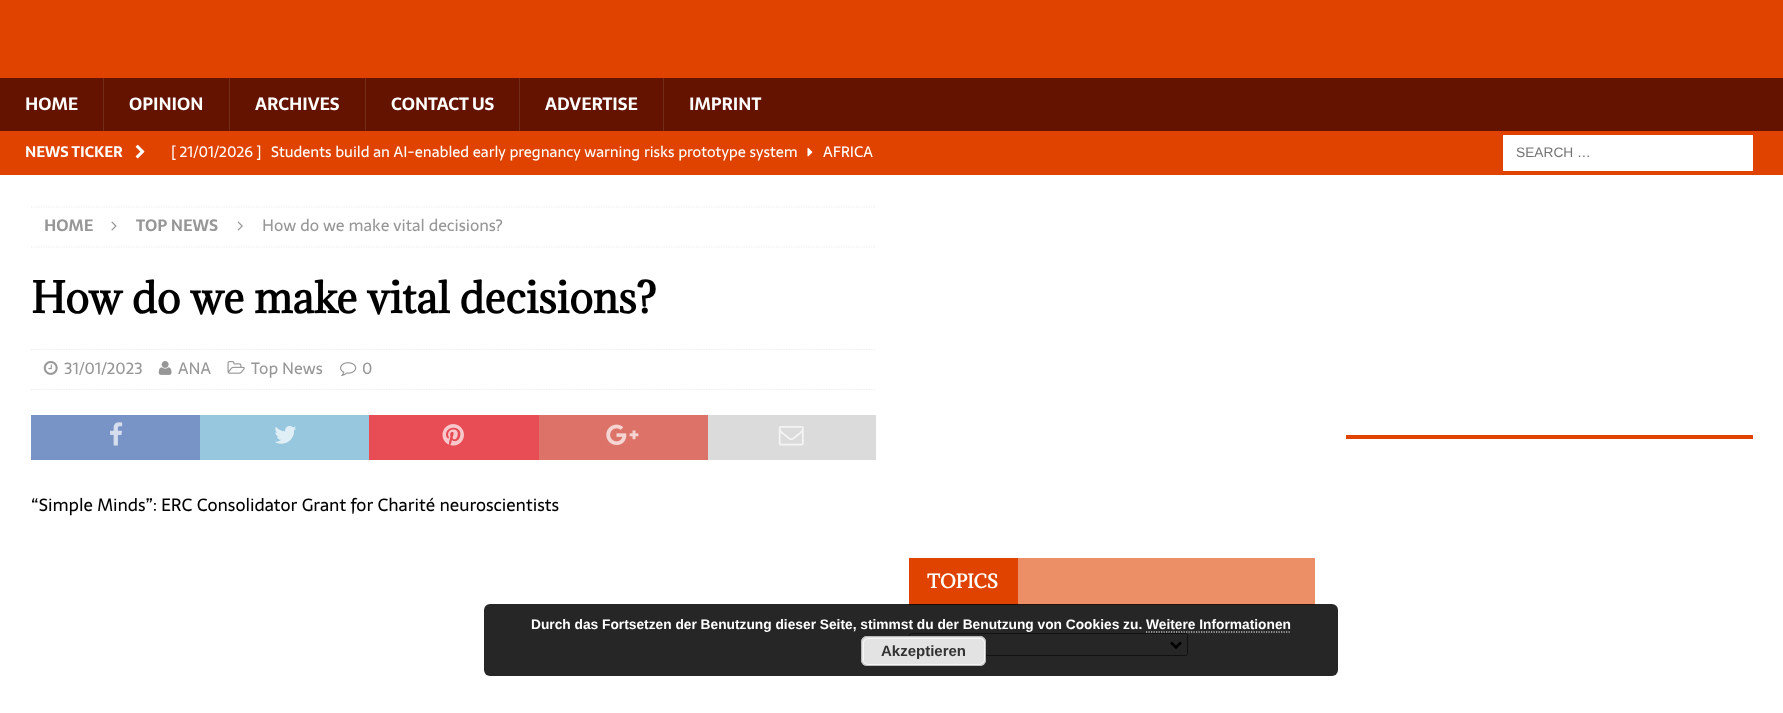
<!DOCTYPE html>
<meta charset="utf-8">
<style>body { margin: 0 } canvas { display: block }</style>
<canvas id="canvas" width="1783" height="713"></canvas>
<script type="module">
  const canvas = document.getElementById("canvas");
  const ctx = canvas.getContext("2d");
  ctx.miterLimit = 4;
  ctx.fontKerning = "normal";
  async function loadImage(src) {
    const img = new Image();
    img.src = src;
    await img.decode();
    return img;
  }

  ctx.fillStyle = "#e04300";
  ctx.fillRect(0, 0, 1783, 713);
  ctx.fillStyle = "#631300";
  ctx.fillRect(0, 78, 1783, 53);
  ctx.font = "bold 17.5px Sarala";
  ctx.fillStyle = "#ffffff";
  ctx.fillText("HOME", 25, 110);
  ctx.fillStyle = "#732b1a";
  ctx.fillRect(103, 78, 1, 53);
  ctx.fillStyle = "#ffffff";
  ctx.fillText("OPINION", 129, 110);
  ctx.fillStyle = "#732b1a";
  ctx.fillRect(229, 78, 1, 53);
  ctx.fillStyle = "#ffffff";
  ctx.fillText("ARCHIVES", 255, 110);
  ctx.fillStyle = "#732b1a";
  ctx.fillRect(365, 78, 1, 53);
  ctx.fillStyle = "#ffffff";
  ctx.fillText("CONTACT US", 391, 110);
  ctx.fillStyle = "#732b1a";
  ctx.fillRect(519, 78, 1, 53);
  ctx.fillStyle = "#ffffff";
  ctx.fillText("ADVERTISE", 545, 110);
  ctx.fillStyle = "#732b1a";
  ctx.fillRect(663, 78, 1, 53);
  ctx.fillStyle = "#ffffff";
  ctx.fillText("IMPRINT", 689, 110);
  ctx.font = "bold 15px Sarala";
  ctx.fillText("NEWS TICKER", 25, 157);
  ctx.drawImage(await loadImage("img1.png"), 135, 144, 10, 15);
  ctx.font = "15px Sarala";
  ctx.fillText("[ 21/01/2026 ]", 171, 157);
  ctx.fillText("Students build an AI-enabled early pregnancy warning risks prototype system", 271, 157);
  ctx.drawImage(await loadImage("img2.png"), 807, 147, 6, 10);
  ctx.fillText("AFRICA", 823, 157);
  ctx.fillRect(1503, 135, 250, 36);
  ctx.font = "13.75px Liberation Sans";
  ctx.fillStyle = "#757575";
  ctx.fillText("SEARCH …", 1516, 157);
  ctx.fillStyle = "#ffffff";
  ctx.fillRect(0, 175, 1783, 538);
  ctx.beginPath();
  ctx.moveTo(31, 207);
  ctx.lineTo(876, 207);
  ctx.strokeStyle = "#ebebeb";
  ctx.lineWidth = 1.2;
  ctx.setLineDash([1.25, 1.25]);
  ctx.stroke();
  ctx.beginPath();
  ctx.moveTo(31, 247);
  ctx.lineTo(876, 247);
  ctx.stroke();
  ctx.font = "bold 16.25px Sarala";
  ctx.fillStyle = "#979797";
  ctx.fillText("HOME", 44, 231);
  ctx.drawImage(await loadImage("img3.png"), 111, 221, 6, 10);
  ctx.fillText("TOP NEWS", 136, 231);
  ctx.drawImage(await loadImage("img4.png"), 237, 221, 6, 10);
  ctx.font = "16.25px Sarala";
  ctx.fillText("How do we make vital decisions?", 262, 231);
  ctx.font = "bold 40px Adamina";
  ctx.fillStyle = "#000000";
  ctx.fillText("How do we make vital decisions?", 31, 313);
  ctx.beginPath();
  ctx.moveTo(31, 349.5);
  ctx.lineTo(876, 349.5);
  ctx.stroke();
  ctx.beginPath();
  ctx.moveTo(31, 389.5);
  ctx.lineTo(876, 389.5);
  ctx.stroke();
  ctx.drawImage(await loadImage("img5.png"), 43, 361, 15, 14);
  ctx.font = "16.25px Sarala";
  ctx.fillStyle = "#979797";
  ctx.fillText("31/01/2023", 64, 374);
  ctx.drawImage(await loadImage("img6.png"), 158, 361, 14, 14);
  ctx.fillText("ANA", 178, 374);
  ctx.drawImage(await loadImage("img7.png"), 227, 361, 18, 13);
  ctx.fillText("Top News", 251, 374);
  ctx.drawImage(await loadImage("img8.png"), 340, 362, 17, 14);
  ctx.fillText("0", 362, 374);
  ctx.fillStyle = "#7893c6";
  ctx.fillRect(31, 415, 169, 45);
  ctx.drawImage(await loadImage("img9.png"), 110, 422, 13, 24);
  ctx.fillStyle = "#97c6df";
  ctx.fillRect(200, 415, 169, 45);
  ctx.drawImage(await loadImage("img10.png"), 274, 425, 22, 19);
  ctx.fillStyle = "#e84d56";
  ctx.fillRect(369, 415, 170, 45);
  ctx.drawImage(await loadImage("img11.png"), 442, 424, 22, 22);
  ctx.fillStyle = "#dc7268";
  ctx.fillRect(539, 415, 169, 45);
  ctx.drawImage(await loadImage("img12.png"), 606, 424, 33, 21);
  ctx.fillStyle = "#dbdbdb";
  ctx.fillRect(708, 415, 168, 45);
  ctx.drawImage(await loadImage("img13.png"), 778, 426, 26, 20);
  ctx.font = "17.5px Sarala";
  ctx.fillStyle = "#000000";
  ctx.fillText("“Simple Minds”: ERC Consolidator Grant for Charité neuroscientists", 31, 511);
  ctx.fillStyle = "#ec8e66";
  ctx.fillRect(1018, 558, 297, 47);
  ctx.fillStyle = "#e04300";
  ctx.fillRect(909, 558, 109, 47);
  ctx.font = "bold 17.5px Adamina";
  ctx.fillStyle = "#ffffff";
  ctx.fillText("TOPICS", 927, 588);
  ctx.beginPath();
  ctx.roundRect(909.5, 633.5, 278, 22, 2);
  ctx.strokeStyle = "#767676";
  ctx.lineWidth = 1;
  ctx.setLineDash([]);
  ctx.stroke();
  ctx.beginPath();
  ctx.moveTo(1171, 642.5);
  ctx.lineTo(1176, 647.5);
  ctx.lineTo(1181, 642.5);
  ctx.strokeStyle = "#000000";
  ctx.lineWidth = 2.5;
  ctx.stroke();
  ctx.fillStyle = "#e04300";
  ctx.fillRect(1346, 435, 407, 4);
  ctx.fillStyle = "rgba(0, 0, 0, 0.85)";
  ctx.beginPath();
  ctx.roundRect(484, 604, 854, 72, 6);
  ctx.fill();
  ctx.font = "bold 13.75px Liberation Sans";
  ctx.fillStyle = "#ffffff";
  ctx.fillText("Durch das Fortsetzen der Benutzung dieser Seite, stimmst du der Benutzung von Cookies zu. Weitere Informationen", 531, 629);
  ctx.beginPath();
  ctx.moveTo(1146, 632);
  ctx.lineTo(1290, 632);
  ctx.strokeStyle = "#ffffff";
  ctx.lineWidth = 1.2;
  ctx.setLineDash([1.25, 1.25]);
  ctx.stroke();
  ctx.fillStyle = "#e3e3e3";
  ctx.beginPath();
  ctx.roundRect(861, 636, 125, 30, 6);
  ctx.fill();
  ctx.beginPath();
  ctx.roundRect(863.5, 638.5, 121, 26, 4.5);
  ctx.strokeStyle = "#f6f6f6";
  ctx.lineWidth = 1;
  ctx.setLineDash([]);
  ctx.stroke();
  ctx.beginPath();
  ctx.roundRect(861.5, 636.5, 124, 29, 5.5);
  ctx.strokeStyle = "#bbbbbb";
  ctx.stroke();
  ctx.font = "bold 15px Liberation Sans";
  ctx.fillStyle = "#333333";
  ctx.fillText("Akzeptieren", 881, 656);
</script>
